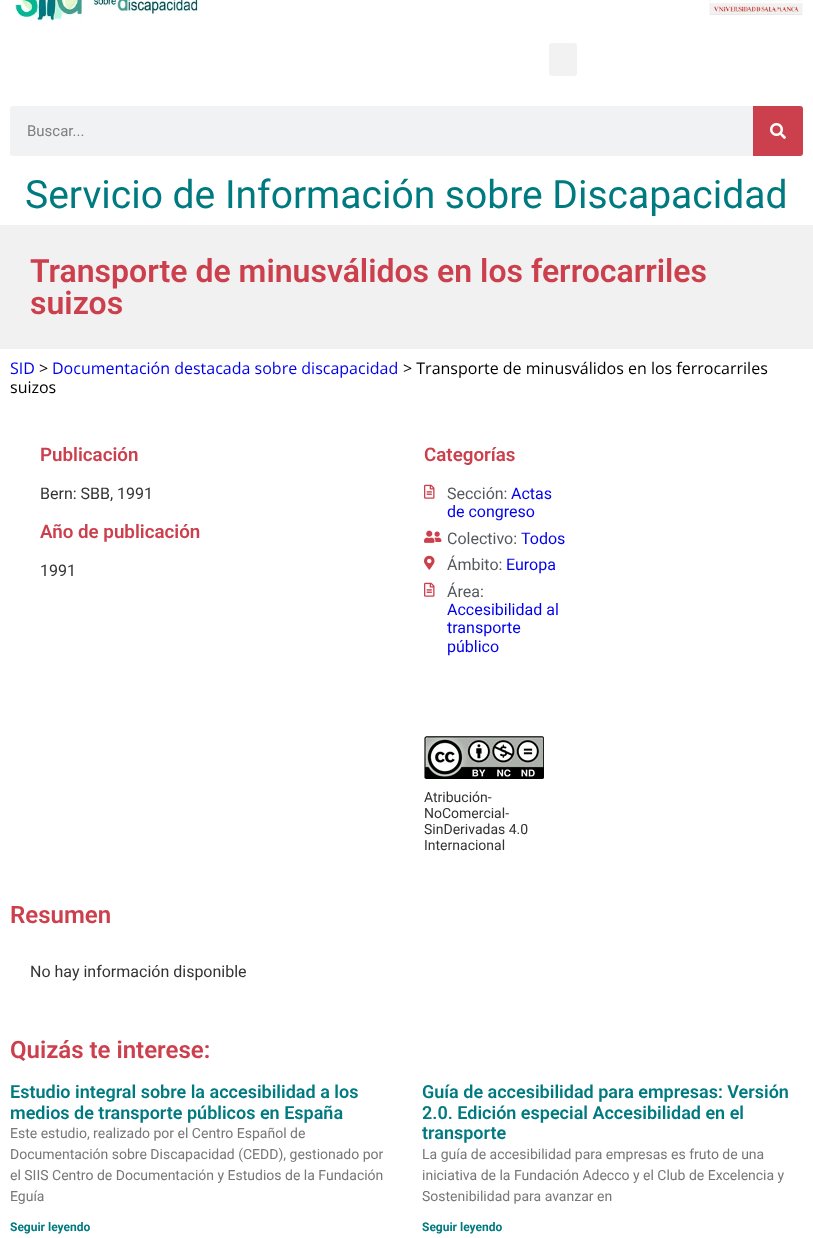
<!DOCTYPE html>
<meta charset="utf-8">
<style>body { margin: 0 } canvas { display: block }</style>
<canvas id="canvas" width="813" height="1238"></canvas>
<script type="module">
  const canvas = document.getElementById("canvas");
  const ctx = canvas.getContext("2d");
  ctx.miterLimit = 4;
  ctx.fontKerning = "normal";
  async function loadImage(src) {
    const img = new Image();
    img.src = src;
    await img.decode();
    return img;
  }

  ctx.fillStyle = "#ffffff";
  ctx.fillRect(0, 0, 813, 1238);
  ctx.drawImage(await loadImage("img1.png"), 15, 0, 185, 21);
  ctx.drawImage(await loadImage("img2.png"), 709, 0, 94, 15);
  ctx.fillStyle = "#f2f2f2";
  ctx.beginPath();
  ctx.roundRect(549, 43, 28, 33, 3);
  ctx.fill();
  ctx.fillStyle = "#f1f2f3";
  ctx.beginPath();
  ctx.roundRect(10, 106, 793, 50, 3);
  ctx.fill();
  ctx.font = "15px Roboto";
  ctx.fillStyle = "#7f7f80";
  ctx.fillText("Buscar...", 27, 136);
  ctx.fillStyle = "#cc404d";
  ctx.beginPath();
  ctx.roundRect(753, 106, 50, 50, [0, 3, 3, 0]);
  ctx.fill();
  ctx.drawImage(await loadImage("img3.png"), 770, 123, 16, 16);
  ctx.font = "39px Roboto";
  ctx.fillStyle = "#007a81";
  ctx.fillText("Servicio de Información sobre Discapacidad", 25, 208);
  ctx.fillStyle = "#f1f1f1";
  ctx.fillRect(0, 225, 813, 124);
  ctx.font = "600 32px Roboto";
  ctx.fillStyle = "#cc404d";
  ctx.fillText("Transporte de minusválidos en los ferrocarriles", 30, 282);
  ctx.fillText("suizos", 30, 314);
  ctx.font = "16px Open Sans";
  ctx.fillStyle = "#0000ee";
  ctx.fillText("SID", 10, 374);
  ctx.fillStyle = "#000000";
  ctx.fillText(">", 39, 374);
  ctx.fillStyle = "#0000ee";
  ctx.fillText("Documentación destacada sobre discapacidad", 52, 374);
  ctx.fillStyle = "#000000";
  ctx.fillText("> Transporte de minusválidos en los ferrocarriles", 403, 374);
  ctx.fillText("suizos", 10, 393);
  ctx.font = "600 18.75px Roboto";
  ctx.fillStyle = "#cc404d";
  ctx.fillText("Publicación", 40, 461);
  ctx.font = "16px Roboto";
  ctx.fillStyle = "#333333";
  ctx.fillText("Bern: SBB, 1991", 40, 499);
  ctx.font = "600 18.75px Roboto";
  ctx.fillStyle = "#cc404d";
  ctx.fillText("Año de publicación", 40, 538);
  ctx.font = "16px Roboto";
  ctx.fillStyle = "#333333";
  ctx.fillText("1991", 40, 576);
  ctx.font = "600 18.75px Roboto";
  ctx.fillStyle = "#cc404d";
  ctx.fillText("Categorías", 424, 461);
  ctx.drawImage(await loadImage("img4.png"), 424, 484, 11, 15);
  ctx.font = "16px Roboto";
  ctx.fillStyle = "#54595f";
  ctx.fillText("Sección:", 447, 499);
  ctx.fillStyle = "#0000ee";
  ctx.fillText("Actas", 511, 499);
  ctx.fillText("de congreso", 447, 517);
  ctx.drawImage(await loadImage("img5.png"), 424, 530, 18, 13);
  ctx.fillStyle = "#54595f";
  ctx.fillText("Colectivo:", 447, 544);
  ctx.fillStyle = "#0000ee";
  ctx.fillText("Todos", 521, 544);
  ctx.drawImage(await loadImage("img6.png"), 424, 555, 11, 15);
  ctx.fillStyle = "#54595f";
  ctx.fillText("Ámbito:", 447, 570);
  ctx.fillStyle = "#0000ee";
  ctx.fillText("Europa", 506, 570);
  ctx.drawImage(await loadImage("img4.png"), 424, 582, 11, 15);
  ctx.fillStyle = "#54595f";
  ctx.fillText("Área:", 447, 597);
  ctx.fillStyle = "#0000ee";
  ctx.fillText("Accesibilidad al", 447, 615);
  ctx.fillText("transporte", 447, 633);
  ctx.fillText("público", 447, 652);
  ctx.drawImage(await loadImage("img7.png"), 424, 736, 120, 43);
  ctx.font = "14px Roboto";
  ctx.fillStyle = "#333333";
  ctx.fillText("Atribución-", 424, 802);
  ctx.fillText("NoComercial-", 424, 818);
  ctx.fillText("SinDerivadas 4.0", 424, 834);
  ctx.fillText("Internacional", 424, 850);
  ctx.font = "600 24px Roboto";
  ctx.fillStyle = "#cc404d";
  ctx.fillText("Resumen", 10, 923);
  ctx.font = "16px Roboto";
  ctx.fillStyle = "#333333";
  ctx.fillText("No hay información disponible", 30, 977);
  ctx.font = "600 24px Roboto";
  ctx.fillStyle = "#cc404d";
  ctx.fillText("Quizás te interese:", 10, 1058);
  ctx.font = "600 18px Roboto";
  ctx.fillStyle = "#007a81";
  ctx.fillText("Estudio integral sobre la accesibilidad a los", 10, 1098);
  ctx.fillText("medios de transporte públicos en España", 10, 1119);
  ctx.font = "14px Roboto";
  ctx.fillStyle = "#777777";
  ctx.fillText("Este estudio, realizado por el Centro Español de", 10, 1138);
  ctx.fillText("Documentación sobre Discapacidad (CEDD), gestionado por", 10, 1159);
  ctx.fillText("el SIIS Centro de Documentación y Estudios de la Fundación", 10, 1180);
  ctx.fillText("Eguía", 10, 1201);
  ctx.font = "bold 12px Roboto";
  ctx.fillStyle = "#007a81";
  ctx.fillText("Seguir leyendo", 10, 1231);
  ctx.font = "600 18px Roboto";
  ctx.fillText("Guía de accesibilidad para empresas: Versión", 422, 1098);
  ctx.fillText("2.0. Edición especial Accesibilidad en el", 422, 1119);
  ctx.fillText("transporte", 422, 1139);
  ctx.font = "14px Roboto";
  ctx.fillStyle = "#777777";
  ctx.fillText("La guía de accesibilidad para empresas es fruto de una", 422, 1159);
  ctx.fillText("iniciativa de la Fundación Adecco y el Club de Excelencia y", 422, 1180);
  ctx.fillText("Sostenibilidad para avanzar en", 422, 1201);
  ctx.font = "bold 12px Roboto";
  ctx.fillStyle = "#007a81";
  ctx.fillText("Seguir leyendo", 422, 1231);
</script>
